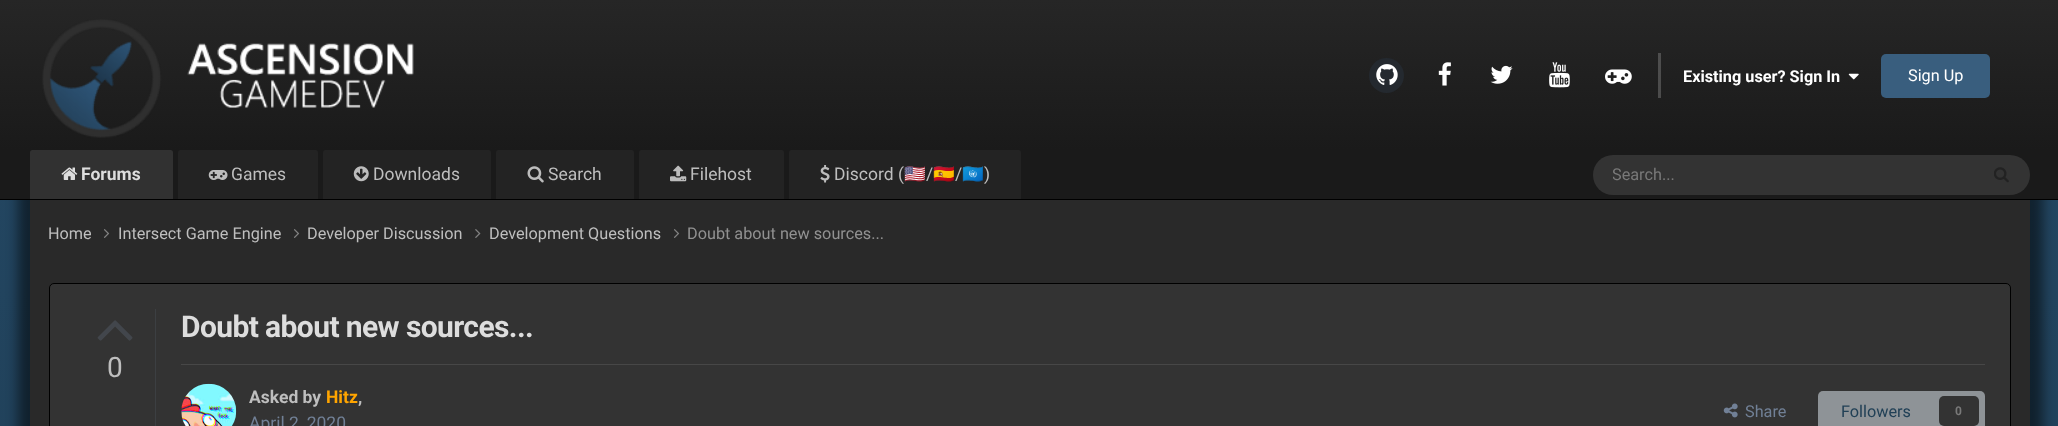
<!DOCTYPE html>
<meta charset="utf-8">
<style>body { margin: 0 } canvas { display: block }</style>
<canvas id="canvas" width="2058" height="426"></canvas>
<script type="module">
  const canvas = document.getElementById("canvas");
  const ctx = canvas.getContext("2d");
  ctx.miterLimit = 4;
  ctx.fontKerning = "normal";
  async function loadImage(src) {
    const img = new Image();
    img.src = src;
    await img.decode();
    return img;
  }
  let gradient;

  ctx.fillStyle = "#ffffff";
  ctx.fillRect(0, 0, 2058, 426);
  gradient = ctx.createLinearGradient(1029, 0, 1029, 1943);
  gradient.addColorStop(0, "#244864");
  gradient.addColorStop(1, "#162d3d");
  ctx.fillStyle = gradient;
  ctx.fillRect(0, 200, 2058, 226);
  ctx.fillStyle = "rgba(0, 0, 0, 0.5)";
  ctx.filter = "blur(6px)";
  ctx.beginPath();
  ctx.rect(18, 188, 2025, 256);
  ctx.fill();
  ctx.filter = "none";
  ctx.fillStyle = "#000000";
  ctx.fillRect(0, 199, 2058, 1);
  gradient = ctx.createLinearGradient(1029, 0, 1029, 150);
  gradient.addColorStop(0, "#262626");
  gradient.addColorStop(1, "#1a1a1a");
  ctx.fillStyle = gradient;
  ctx.fillRect(0, 0, 2058, 150);
  gradient = ctx.createLinearGradient(1029, 0, 1029, 150);
  gradient.addColorStop(0, "#515151");
  gradient.addColorStop(1, "#484848");
  ctx.fillStyle = gradient;
  ctx.fillRect(1658, 53, 3, 45);
  ctx.drawImage(await loadImage("img1.png"), 42, 19, 372, 119);
  ctx.fillStyle = "#24292f";
  ctx.beginPath();
  ctx.arc(1386.5, 75.5, 17.5, 0, Math.PI * 2);
  ctx.fill();
  ctx.drawImage(await loadImage("img2.png"), 1376, 64, 22, 21);
  ctx.drawImage(await loadImage("img3.png"), 1438, 62, 13, 24);
  ctx.drawImage(await loadImage("img4.png"), 1490, 65, 23, 19);
  ctx.drawImage(await loadImage("img5.png"), 1549, 62, 21, 26);
  ctx.drawImage(await loadImage("img6.png"), 1605, 69, 27, 15);
  ctx.font = "bold 16.25px Roboto";
  ctx.fillStyle = "#ffffff";
  ctx.fillText("Existing user? Sign In", 1683, 82);
  ctx.drawImage(await loadImage("img7.png"), 1848, 73, 11, 7);
  ctx.fillStyle = "#395e7e";
  ctx.beginPath();
  ctx.roundRect(1881, 54, 109, 44, 5);
  ctx.fill();
  ctx.font = "16.25px Roboto";
  ctx.fillStyle = "#ffffff";
  ctx.fillText("Sign Up", 1908, 81);
  ctx.fillStyle = "#1a1a1a";
  ctx.fillRect(0, 150, 2058, 49);
  ctx.fillStyle = "#313131";
  ctx.beginPath();
  ctx.roundRect(30, 150, 143, 49, [2.5, 2.5, 0, 0]);
  ctx.fill();
  ctx.drawImage(await loadImage("img8.png"), 61, 167, 17, 13);
  ctx.font = "bold 17.5px Roboto";
  ctx.fillStyle = "#dddddd";
  ctx.fillText("Forums", 81, 180);
  ctx.fillStyle = "#232323";
  ctx.beginPath();
  ctx.roundRect(178, 150, 140, 49, [2.5, 2.5, 0, 0]);
  ctx.fill();
  ctx.drawImage(await loadImage("img9.png"), 208, 170, 20, 10);
  ctx.font = "17.5px Roboto";
  ctx.fillStyle = "#bebebe";
  ctx.fillText("Games", 231, 180);
  ctx.fillStyle = "#232323";
  ctx.beginPath();
  ctx.roundRect(323, 150, 168, 49, [2.5, 2.5, 0, 0]);
  ctx.fill();
  ctx.drawImage(await loadImage("img10.png"), 353, 166, 16, 16);
  ctx.fillStyle = "#bebebe";
  ctx.fillText("Downloads", 373, 180);
  ctx.fillStyle = "#232323";
  ctx.beginPath();
  ctx.roundRect(496, 150, 138, 49, [2.5, 2.5, 0, 0]);
  ctx.fill();
  ctx.drawImage(await loadImage("img11.png"), 527, 166, 17, 17);
  ctx.fillStyle = "#bebebe";
  ctx.fillText("Search", 548, 180);
  ctx.fillStyle = "#232323";
  ctx.beginPath();
  ctx.roundRect(639, 150, 145, 49, [2.5, 2.5, 0, 0]);
  ctx.fill();
  ctx.drawImage(await loadImage("img12.png"), 670, 165, 17, 17);
  ctx.fillStyle = "#bebebe";
  ctx.fillText("Filehost", 690, 180);
  ctx.fillStyle = "#232323";
  ctx.beginPath();
  ctx.roundRect(789, 150, 232, 49, [2.5, 2.5, 0, 0]);
  ctx.fill();
  ctx.drawImage(await loadImage("img13.png"), 820, 165, 10, 18);
  ctx.fillStyle = "#bebebe";
  ctx.fillText("Discord (", 834, 180);
  ctx.font = "17.5px Noto Color Emoji";
  ctx.fillText("🇺🇸", 904, 180);
  ctx.font = "17.5px Roboto";
  ctx.fillText("/", 926, 180);
  ctx.font = "17.5px Noto Color Emoji";
  ctx.fillText("🇪🇸", 933, 180);
  ctx.font = "17.5px Roboto";
  ctx.fillText("/", 955, 180);
  ctx.font = "17.5px Noto Color Emoji";
  ctx.fillText("🇺🇳", 962, 180);
  ctx.font = "17.5px Roboto";
  ctx.fillText(")", 984, 180);
  ctx.fillStyle = "#333333";
  ctx.beginPath();
  ctx.roundRect(1593, 155, 437, 40, 20);
  ctx.fill();
  ctx.save();
  ctx.beginPath();
  ctx.rect(1613, 165, 218, 19);
  ctx.clip();
  ctx.font = "16.25px Roboto";
  ctx.fillStyle = "#797979";
  ctx.fillText("Search...", 1612, 180);
  ctx.restore();
  ctx.drawImage(await loadImage("img14.png"), 1994, 167, 15, 16);
  ctx.fillStyle = "#292929";
  ctx.fillRect(30, 200, 2000, 226);
  ctx.font = "16.25px Roboto";
  ctx.fillStyle = "#bebebe";
  ctx.fillText("Home", 48, 239);
  ctx.drawImage(await loadImage("img15.png"), 104, 229, 6, 9);
  ctx.fillText("Intersect Game Engine", 118, 239);
  ctx.drawImage(await loadImage("img15.png"), 294, 229, 6, 9);
  ctx.fillText("Developer Discussion", 307, 239);
  ctx.drawImage(await loadImage("img16.png"), 475, 229, 6, 9);
  ctx.fillText("Development Questions", 489, 239);
  ctx.drawImage(await loadImage("img15.png"), 674, 229, 6, 9);
  ctx.fillStyle = "#919191";
  ctx.fillText("Doubt about new sources...", 687, 239);
  ctx.fillStyle = "#333333";
  ctx.beginPath();
  ctx.roundRect(49.5, 283.5, 1961, 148, 4.5);
  ctx.fill();
  ctx.strokeStyle = "#000000";
  ctx.stroke();
  ctx.fillStyle = "#3c3f42";
  ctx.fillRect(155, 309, 1, 117);
  ctx.drawImage(await loadImage("img17.png"), 97, 320, 36, 21);
  ctx.font = "28px Roboto";
  ctx.fillStyle = "#bebebe";
  ctx.fillText("0", 107, 377);
  ctx.letterSpacing = "-0.6px";
  ctx.font = "bold 30px Roboto";
  ctx.fillStyle = "#dddddd";
  ctx.fillText("Doubt about new sources...", 181, 337);
  ctx.fillStyle = "#474747";
  ctx.fillRect(181, 364, 1804, 1);
  ctx.drawImage(await loadImage("img18.png"), 181, 383, 56, 43);
  ctx.letterSpacing = "0px";
  ctx.font = "bold 17.5px Roboto";
  ctx.fillStyle = "#bebebe";
  ctx.fillText("Asked by", 249, 403);
  ctx.fillStyle = "#ffa500";
  ctx.fillText("Hitz", 326, 403);
  ctx.fillStyle = "#bebebe";
  ctx.fillText(",", 358, 403);
  ctx.font = "17.5px Roboto";
  ctx.fillStyle = "#718096";
  ctx.fillText("April 2, 2020", 249, 429);
  ctx.drawImage(await loadImage("img19.png"), 1723, 403, 15, 15);
  ctx.font = "16.25px Roboto";
  ctx.fillText("Share", 1745, 417);
  ctx.fillStyle = "#8e9397";
  ctx.beginPath();
  ctx.roundRect(1818, 391, 167, 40, 5);
  ctx.fill();
  ctx.fillStyle = "#214056";
  ctx.fillText("Followers", 1841, 417);
  ctx.fillStyle = "#333333";
  ctx.beginPath();
  ctx.roundRect(1939, 396, 40, 30, 5);
  ctx.fill();
  ctx.font = "bold 12px Roboto";
  ctx.fillStyle = "#797979";
  ctx.fillText("0", 1955, 415);
</script>
